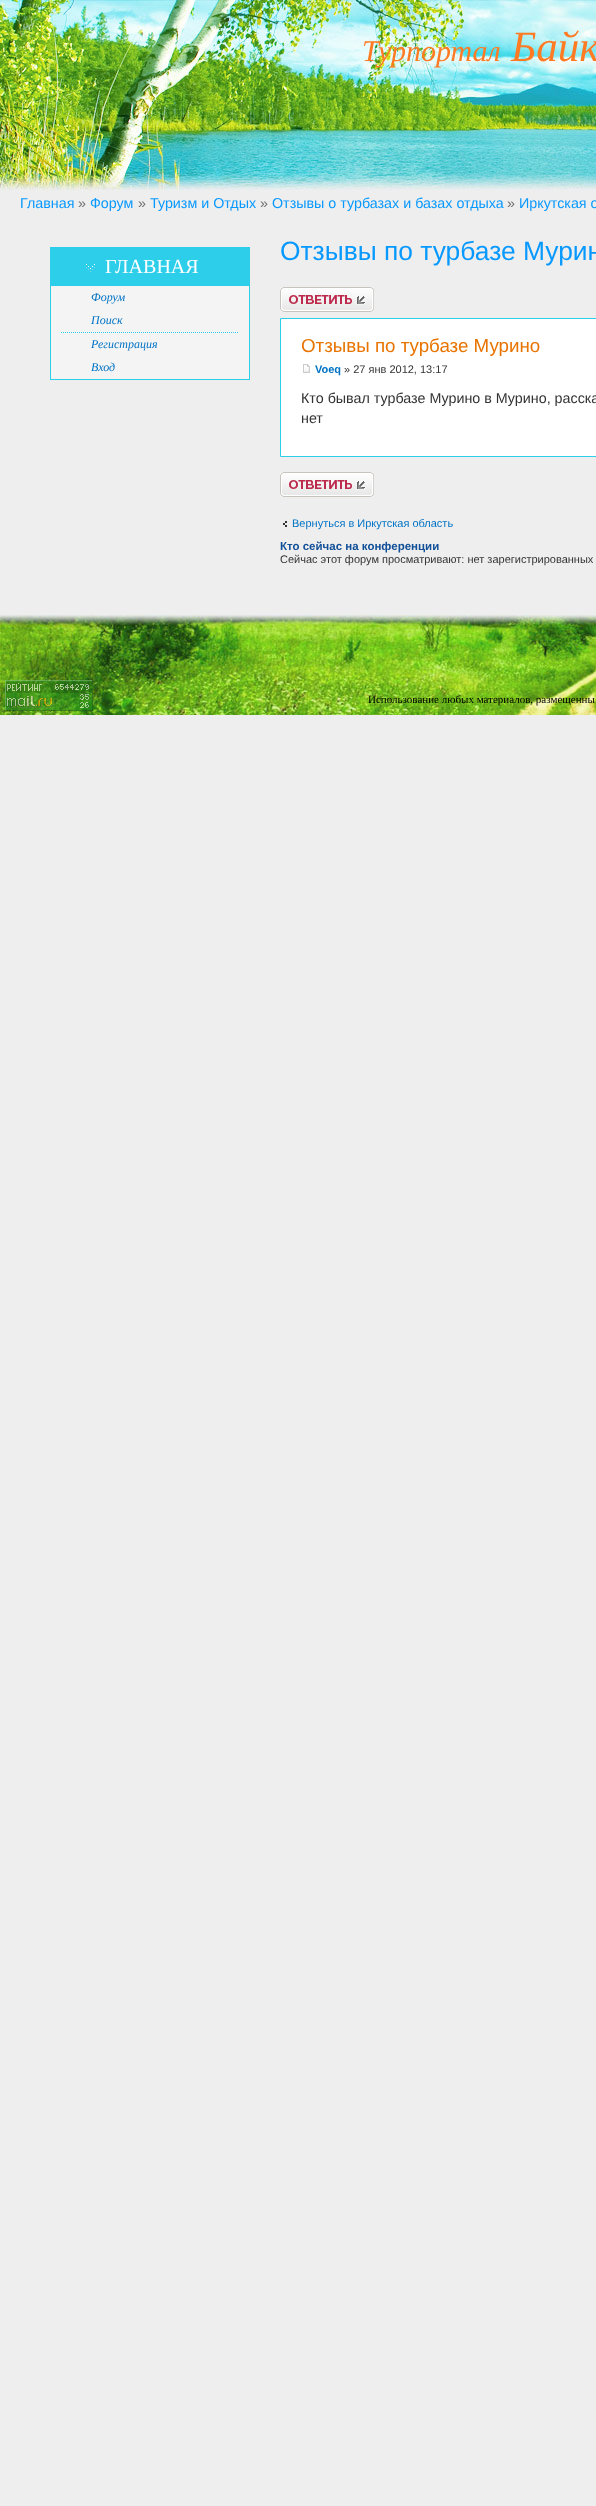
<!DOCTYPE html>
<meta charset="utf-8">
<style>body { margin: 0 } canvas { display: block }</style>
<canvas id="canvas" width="596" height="2506"></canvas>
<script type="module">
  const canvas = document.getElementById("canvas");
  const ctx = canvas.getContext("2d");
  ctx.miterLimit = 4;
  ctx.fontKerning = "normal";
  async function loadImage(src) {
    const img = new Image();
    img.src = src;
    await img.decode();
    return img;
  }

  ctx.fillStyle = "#eeeeee";
  ctx.fillRect(0, 0, 596, 2506);
  ctx.drawImage(await loadImage("img1.png"), 0, 0, 596, 190);
  ctx.font = "italic 30px Liberation Serif";
  ctx.fillStyle = "#ff7b23";
  ctx.fillText("Турпортал", 362, 61);
  ctx.font = "italic 43px Liberation Serif";
  ctx.fillText("Байк", 511, 61);
  ctx.font = "14.3px Liberation Sans";
  ctx.fillStyle = "#0899ff";
  ctx.fillText("Главная", 20, 208);
  ctx.fillStyle = "#717171";
  ctx.fillText("»", 78, 208);
  ctx.fillStyle = "#0899ff";
  ctx.fillText("Форум", 90, 208);
  ctx.fillStyle = "#717171";
  ctx.fillText("»", 138, 208);
  ctx.fillStyle = "#0899ff";
  ctx.fillText("Туризм и Отдых", 150, 208);
  ctx.fillStyle = "#717171";
  ctx.fillText("»", 260, 208);
  ctx.fillStyle = "#0899ff";
  ctx.fillText("Отзывы о турбазах и базах отдыха", 272, 208);
  ctx.fillStyle = "#717171";
  ctx.fillText("»", 507, 208);
  ctx.fillStyle = "#0899ff";
  ctx.fillText("Иркутская о", 519, 208);
  ctx.fillStyle = "#2dceea";
  ctx.fillRect(50, 247, 200, 39);
  ctx.drawImage(await loadImage("img2.png"), 86, 264, 9, 8);
  ctx.font = "20px Liberation Serif";
  ctx.fillStyle = "#ffffff";
  ctx.fillText("ГЛАВНАЯ", 105, 273);
  ctx.fillStyle = "#f4f4f4";
  ctx.fillRect(51, 286, 198, 46);
  ctx.fillStyle = "#2dceea";
  ctx.fillRect(249, 286, 1, 46);
  ctx.fillRect(50, 286, 1, 46);
  ctx.font = "italic 12px Liberation Serif";
  ctx.fillStyle = "#0073c5";
  ctx.fillText("Форум", 91, 301);
  ctx.fillText("Поиск", 91, 324);
  ctx.fillStyle = "#f4f4f4";
  ctx.fillRect(50, 332, 200, 1);
  ctx.fillStyle = "#2dceea";
  ctx.fillRect(249, 332, 1, 47);
  ctx.fillRect(50, 332, 1, 47);
  ctx.beginPath();
  ctx.moveTo(61, 332.5);
  ctx.lineTo(239, 332.5);
  ctx.strokeStyle = "#2dceea";
  ctx.setLineDash([1, 1]);
  ctx.stroke();
  ctx.fillStyle = "#f4f4f4";
  ctx.fillRect(51, 333, 198, 46);
  ctx.fillStyle = "#0073c5";
  ctx.fillText("Регистрация", 91, 348);
  ctx.fillText("Вход", 91, 371);
  ctx.fillStyle = "#2dceea";
  ctx.fillRect(50, 379, 200, 1);
  ctx.font = "26.4px Liberation Sans";
  ctx.fillStyle = "#0899ff";
  ctx.fillText("Отзывы по турбазе Мурин", 280, 260);
  ctx.drawImage(await loadImage("img3.png"), 280, 287, 94, 25);
  ctx.fillStyle = "#ffffff";
  ctx.beginPath();
  ctx.rect(280.5, 318.5, 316, 138);
  ctx.fill();
  ctx.setLineDash([]);
  ctx.stroke();
  ctx.font = "18.75px Liberation Sans";
  ctx.fillStyle = "#e87400";
  ctx.fillText("Отзывы по турбазе Мурино", 301, 352);
  ctx.drawImage(await loadImage("img4.png"), 303, 364, 7, 9);
  ctx.font = "bold 11px Liberation Sans";
  ctx.fillStyle = "#0073c5";
  ctx.fillText("Voeq", 315, 373);
  ctx.font = "11px Liberation Sans";
  ctx.fillStyle = "#333333";
  ctx.fillText("» 27 янв 2012, 13:17", 344, 373);
  ctx.font = "14.3px Liberation Sans";
  ctx.fillText("Кто бывал турбазе Мурино в Мурино, расска", 301, 403);
  ctx.fillText("нет", 301, 423);
  ctx.drawImage(await loadImage("img3.png"), 280, 472, 94, 25);
  ctx.drawImage(await loadImage("img5.png"), 283, 521, 4, 6);
  ctx.font = "11px Liberation Sans";
  ctx.fillStyle = "#0073c5";
  ctx.fillText("Вернуться в Иркутская область", 292, 527);
  ctx.font = "bold 11.5px Liberation Sans";
  ctx.fillStyle = "#115098";
  ctx.fillText("Кто сейчас на конференции", 280, 550);
  ctx.font = "11px Liberation Sans";
  ctx.fillStyle = "#333333";
  ctx.fillText("Сейчас этот форум просматривают: нет зарегистрированных", 280, 563);
  ctx.drawImage(await loadImage("img6.png"), 0, 615, 596, 100);
  ctx.drawImage(await loadImage("img7.png"), 5, 680, 88, 31);
  ctx.font = "11px Liberation Serif";
  ctx.fillStyle = "#000000";
  ctx.fillText("Использование любых материалов, размещенны", 368, 703);
</script>
